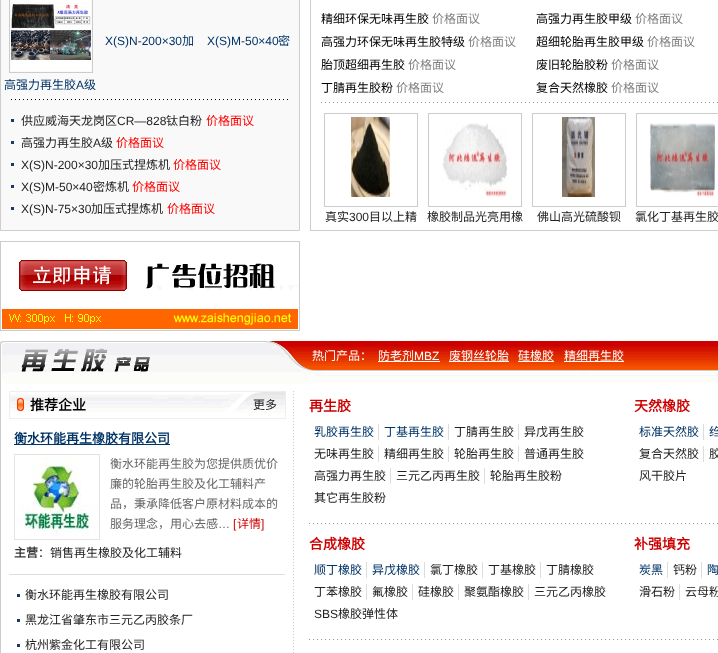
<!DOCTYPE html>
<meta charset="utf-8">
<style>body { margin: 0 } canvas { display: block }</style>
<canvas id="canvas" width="718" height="653"></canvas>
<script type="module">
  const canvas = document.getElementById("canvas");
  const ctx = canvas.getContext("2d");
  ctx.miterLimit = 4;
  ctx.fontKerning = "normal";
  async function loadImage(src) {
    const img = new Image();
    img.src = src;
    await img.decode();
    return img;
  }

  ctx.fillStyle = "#ffffff";
  ctx.fillRect(0, 0, 718, 653);
  ctx.fillStyle = "#f9f9f9";
  ctx.beginPath();
  ctx.rect(0.5, -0.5, 299, 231);
  ctx.fill();
  ctx.strokeStyle = "#cecece";
  ctx.stroke();
  ctx.font = "12px Liberation Sans";
  ctx.fillStyle = "#003366";
  ctx.fillText("X(S)N-200×30", 105, 45);
  ctx.font = "12px Noto Sans CJK SC";
  ctx.fillText("加", 182, 45);
  ctx.font = "12px Liberation Sans";
  ctx.fillText("X(S)M-50×40", 207, 45);
  ctx.font = "12px Noto Sans CJK SC";
  ctx.fillText("密", 278, 45);
  ctx.strokeStyle = "#cccccc";
  ctx.strokeRect(9.5, -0.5, 83, 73);
  ctx.drawImage(await loadImage("img1.png"), 11, 0, 80, 71);
  ctx.fillText("高强力再生胶", 4, 89);
  ctx.font = "12px Liberation Sans";
  ctx.fillText("A", 76, 89);
  ctx.font = "12px Noto Sans CJK SC";
  ctx.fillText("级", 84, 89);
  ctx.drawImage(await loadImage("img2.png"), 11, 99, 277, 1);
  ctx.fillStyle = "#1c376c";
  ctx.fillRect(11, 119, 3, 3);
  ctx.fillStyle = "#222222";
  ctx.fillText("供应威海天龙岗区", 21, 125);
  ctx.font = "12px Liberation Sans";
  ctx.fillText("CR—828", 117, 125);
  ctx.font = "12px Noto Sans CJK SC";
  ctx.fillText("钛白粉", 166, 125);
  ctx.fillStyle = "#ff0000";
  ctx.fillText("价格面议", 206, 125);
  ctx.fillStyle = "#1c376c";
  ctx.fillRect(11, 141, 3, 3);
  ctx.fillStyle = "#222222";
  ctx.fillText("高强力再生胶", 21, 147);
  ctx.font = "12px Liberation Sans";
  ctx.fillText("A", 93, 147);
  ctx.font = "12px Noto Sans CJK SC";
  ctx.fillText("级", 101, 147);
  ctx.fillStyle = "#ff0000";
  ctx.fillText("价格面议", 116, 147);
  ctx.fillStyle = "#1c376c";
  ctx.fillRect(11, 163, 3, 3);
  ctx.font = "12px Liberation Sans";
  ctx.fillStyle = "#222222";
  ctx.fillText("X(S)N-200×30", 21, 169);
  ctx.font = "12px Noto Sans CJK SC";
  ctx.fillText("加压式捏炼机", 98, 169);
  ctx.fillStyle = "#ff0000";
  ctx.fillText("价格面议", 173, 169);
  ctx.fillStyle = "#1c376c";
  ctx.fillRect(11, 185, 3, 3);
  ctx.font = "12px Liberation Sans";
  ctx.fillStyle = "#222222";
  ctx.fillText("X(S)M-50×40", 21, 191);
  ctx.font = "12px Noto Sans CJK SC";
  ctx.fillText("密炼机", 93, 191);
  ctx.fillStyle = "#ff0000";
  ctx.fillText("价格面议", 132, 191);
  ctx.fillStyle = "#1c376c";
  ctx.fillRect(11, 207, 3, 3);
  ctx.font = "12px Liberation Sans";
  ctx.fillStyle = "#222222";
  ctx.fillText("X(S)N-75×30", 21, 213);
  ctx.font = "12px Noto Sans CJK SC";
  ctx.fillText("加压式捏炼机", 91, 213);
  ctx.fillStyle = "#ff0000";
  ctx.fillText("价格面议", 167, 213);
  ctx.fillStyle = "#cecece";
  ctx.fillRect(310, 230, 408, 1);
  ctx.fillRect(310, 0, 1, 231);
  ctx.fillStyle = "#000000";
  ctx.fillText("精细环保无味再生胶", 321, 23);
  ctx.fillStyle = "#808080";
  ctx.fillText("价格面议", 432, 23);
  ctx.fillStyle = "#000000";
  ctx.fillText("高强力再生胶甲级", 536, 23);
  ctx.fillStyle = "#808080";
  ctx.fillText("价格面议", 635, 23);
  ctx.fillStyle = "#000000";
  ctx.fillText("高强力环保无味再生胶特级", 321, 46);
  ctx.fillStyle = "#808080";
  ctx.fillText("价格面议", 468, 46);
  ctx.fillStyle = "#000000";
  ctx.fillText("超细轮胎再生胶甲级", 536, 46);
  ctx.fillStyle = "#808080";
  ctx.fillText("价格面议", 647, 46);
  ctx.fillStyle = "#000000";
  ctx.fillText("胎顶超细再生胶", 321, 69);
  ctx.fillStyle = "#808080";
  ctx.fillText("价格面议", 408, 69);
  ctx.fillStyle = "#000000";
  ctx.fillText("废旧轮胎胶粉", 536, 69);
  ctx.fillStyle = "#808080";
  ctx.fillText("价格面议", 611, 69);
  ctx.fillStyle = "#000000";
  ctx.fillText("丁腈再生胶粉", 321, 92);
  ctx.fillStyle = "#808080";
  ctx.fillText("价格面议", 396, 92);
  ctx.fillStyle = "#000000";
  ctx.fillText("复合天然橡胶", 536, 92);
  ctx.fillStyle = "#808080";
  ctx.fillText("价格面议", 611, 92);
  ctx.drawImage(await loadImage("img3.png"), 321, 102, 397, 1);
  ctx.strokeRect(324.5, 113.5, 93, 93);
  ctx.drawImage(await loadImage("img4.png"), 350, 117, 41, 80);
  ctx.fillStyle = "#222222";
  ctx.fillText("真实", 325, 221);
  ctx.font = "12px Liberation Sans";
  ctx.fillText("300", 349, 221);
  ctx.font = "12px Noto Sans CJK SC";
  ctx.fillText("目以上精", 369, 221);
  ctx.strokeRect(428.5, 113.5, 93, 93);
  ctx.drawImage(await loadImage("img5.png"), 442, 123, 65, 74);
  ctx.fillText("橡胶制品光亮用橡", 427, 221);
  ctx.strokeRect(532.5, 113.5, 93, 93);
  ctx.drawImage(await loadImage("img6.png"), 561, 117, 35, 80);
  ctx.fillText("佛山高光硫酸钡", 537, 221);
  ctx.strokeRect(636.5, 113.5, 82, 93);
  ctx.drawImage(await loadImage("img7.png"), 650, 123, 65, 74);
  ctx.fillText("氯化丁基再生胶", 635, 221);
  ctx.drawImage(await loadImage("img8.png"), 0, 241, 300, 90);
  ctx.drawImage(await loadImage("img9.png"), 0, 341, 718, 50);
  ctx.fillStyle = "#ffffff";
  ctx.fillText("热门产品：", 312, 360);
  ctx.fillText("防老剂", 378, 360);
  ctx.font = "12px Liberation Sans";
  ctx.fillText("MBZ", 414, 360);
  ctx.fillRect(378, 361, 62, 1);
  ctx.font = "12px Noto Sans CJK SC";
  ctx.fillText("废钢丝轮胎", 449, 360);
  ctx.fillRect(449, 361, 60, 1);
  ctx.fillText("硅橡胶", 518, 360);
  ctx.fillRect(518, 361, 36, 1);
  ctx.fillText("精细再生胶", 564, 360);
  ctx.fillRect(564, 361, 60, 1);
  ctx.fillStyle = "#cccccc";
  ctx.fillRect(0, 391, 1, 262);
  ctx.drawImage(await loadImage("img10.png"), 293, 391, 1, 262);
  ctx.drawImage(await loadImage("img11.png"), 10, 392, 275, 21);
  ctx.strokeStyle = "#eeeeee";
  ctx.strokeRect(9.5, 391.5, 276, 27);
  ctx.font = "bold 14px Noto Sans CJK SC";
  ctx.fillStyle = "#000000";
  ctx.fillText("推荐企业", 30, 410);
  ctx.font = "12px Noto Sans CJK SC";
  ctx.fillStyle = "#222222";
  ctx.fillText("更多", 253, 409);
  ctx.fillStyle = "#003366";
  ctx.fillRect(14, 444, 156, 1);
  ctx.font = "bold 13px Noto Sans CJK SC";
  ctx.fillText("衡水环能再生橡胶有限公司", 14, 443);
  ctx.strokeStyle = "#e3e3e3";
  ctx.strokeRect(14.5, 454.5, 85, 85);
  ctx.drawImage(await loadImage("img12.png"), 17, 457, 80, 80);
  ctx.font = "12px Noto Sans CJK SC";
  ctx.fillStyle = "#666666";
  ctx.fillText("衡水环能再生胶为您提供质优价", 110, 468);
  ctx.fillText("廉的轮胎再生胶及化工辅料产", 110, 488);
  ctx.fillText("品，秉承降低客户原材料成本的", 110, 508);
  ctx.fillText("服务理念，用心去感", 110, 528);
  ctx.font = "12px Liberation Sans";
  ctx.fillText("…", 218, 528);
  ctx.fillStyle = "#cc0000";
  ctx.fillText("[", 233, 528);
  ctx.font = "12px Noto Sans CJK SC";
  ctx.fillText("详情", 237, 528);
  ctx.font = "12px Liberation Sans";
  ctx.fillText("]", 261, 528);
  ctx.font = "bold 12px Noto Sans CJK SC";
  ctx.fillStyle = "#333333";
  ctx.fillText("主营", 14, 557);
  ctx.font = "12px Noto Sans CJK SC";
  ctx.fillText("：", 38, 557);
  ctx.fillStyle = "#222222";
  ctx.fillText("销售再生橡胶及化工辅料", 50, 557);
  ctx.fillStyle = "#dedede";
  ctx.fillRect(9, 574, 276, 1);
  ctx.fillStyle = "#1c376c";
  ctx.fillRect(17, 594, 3, 3);
  ctx.fillStyle = "#222222";
  ctx.fillText("衡水环能再生橡胶有限公司", 25, 599);
  ctx.fillStyle = "#1c376c";
  ctx.fillRect(17, 619, 3, 3);
  ctx.fillStyle = "#222222";
  ctx.fillText("黑龙江省肇东市三元乙丙胶条厂", 25, 624);
  ctx.fillStyle = "#1c376c";
  ctx.fillRect(17, 644, 3, 3);
  ctx.fillStyle = "#222222";
  ctx.fillText("杭州紫金化工有限公司", 25, 649);
  ctx.drawImage(await loadImage("img13.png"), 309, 523, 409, 1);
  ctx.font = "bold 14px Noto Sans CJK SC";
  ctx.fillStyle = "#cc0000";
  ctx.fillText("再生胶", 309, 411);
  ctx.font = "12px Noto Sans CJK SC";
  ctx.fillStyle = "#003366";
  ctx.fillText("乳胶再生胶", 314, 436);
  ctx.fillStyle = "#dddddd";
  ctx.fillRect(378, 424, 1, 16);
  ctx.fillStyle = "#003366";
  ctx.fillText("丁基再生胶", 384, 436);
  ctx.fillStyle = "#dddddd";
  ctx.fillRect(448, 424, 1, 16);
  ctx.fillStyle = "#222222";
  ctx.fillText("丁腈再生胶", 454, 436);
  ctx.fillStyle = "#dddddd";
  ctx.fillRect(518, 424, 1, 16);
  ctx.fillStyle = "#222222";
  ctx.fillText("异戊再生胶", 524, 436);
  ctx.fillText("无味再生胶", 314, 458);
  ctx.fillStyle = "#dddddd";
  ctx.fillRect(378, 446, 1, 16);
  ctx.fillStyle = "#222222";
  ctx.fillText("精细再生胶", 384, 458);
  ctx.fillStyle = "#dddddd";
  ctx.fillRect(448, 446, 1, 16);
  ctx.fillStyle = "#222222";
  ctx.fillText("轮胎再生胶", 454, 458);
  ctx.fillStyle = "#dddddd";
  ctx.fillRect(518, 446, 1, 16);
  ctx.fillStyle = "#222222";
  ctx.fillText("普通再生胶", 524, 458);
  ctx.fillText("高强力再生胶", 314, 480);
  ctx.fillStyle = "#dddddd";
  ctx.fillRect(390, 468, 1, 16);
  ctx.fillStyle = "#222222";
  ctx.fillText("三元乙丙再生胶", 396, 480);
  ctx.fillStyle = "#dddddd";
  ctx.fillRect(484, 468, 1, 16);
  ctx.fillStyle = "#222222";
  ctx.fillText("轮胎再生胶粉", 490, 480);
  ctx.fillText("其它再生胶粉", 314, 502);
  ctx.font = "bold 14px Noto Sans CJK SC";
  ctx.fillStyle = "#cc0000";
  ctx.fillText("天然橡胶", 634, 411);
  ctx.font = "12px Noto Sans CJK SC";
  ctx.fillStyle = "#003366";
  ctx.fillText("标准天然胶", 639, 436);
  ctx.fillStyle = "#dddddd";
  ctx.fillRect(703, 424, 1, 16);
  ctx.fillStyle = "#003366";
  ctx.fillText("绉", 709, 436);
  ctx.fillStyle = "#222222";
  ctx.fillText("复合天然胶", 639, 458);
  ctx.fillStyle = "#dddddd";
  ctx.fillRect(703, 446, 1, 16);
  ctx.fillStyle = "#222222";
  ctx.fillText("胶", 709, 458);
  ctx.fillText("风干胶片", 639, 480);
  ctx.drawImage(await loadImage("img13.png"), 309, 639, 409, 1);
  ctx.font = "bold 14px Noto Sans CJK SC";
  ctx.fillStyle = "#cc0000";
  ctx.fillText("合成橡胶", 309, 549);
  ctx.font = "12px Noto Sans CJK SC";
  ctx.fillStyle = "#003366";
  ctx.fillText("顺丁橡胶", 314, 574);
  ctx.fillStyle = "#dddddd";
  ctx.fillRect(366, 562, 1, 16);
  ctx.fillStyle = "#003366";
  ctx.fillText("异戊橡胶", 372, 574);
  ctx.fillStyle = "#dddddd";
  ctx.fillRect(424, 562, 1, 16);
  ctx.fillStyle = "#222222";
  ctx.fillText("氯丁橡胶", 430, 574);
  ctx.fillStyle = "#dddddd";
  ctx.fillRect(482, 562, 1, 16);
  ctx.fillStyle = "#222222";
  ctx.fillText("丁基橡胶", 488, 574);
  ctx.fillStyle = "#dddddd";
  ctx.fillRect(540, 562, 1, 16);
  ctx.fillStyle = "#222222";
  ctx.fillText("丁腈橡胶", 546, 574);
  ctx.fillText("丁苯橡胶", 314, 596);
  ctx.fillStyle = "#dddddd";
  ctx.fillRect(366, 584, 1, 16);
  ctx.fillStyle = "#222222";
  ctx.fillText("氟橡胶", 372, 596);
  ctx.fillStyle = "#dddddd";
  ctx.fillRect(412, 584, 1, 16);
  ctx.fillStyle = "#222222";
  ctx.fillText("硅橡胶", 418, 596);
  ctx.fillStyle = "#dddddd";
  ctx.fillRect(458, 584, 1, 16);
  ctx.fillStyle = "#222222";
  ctx.fillText("聚氨酯橡胶", 464, 596);
  ctx.fillStyle = "#dddddd";
  ctx.fillRect(528, 584, 1, 16);
  ctx.fillStyle = "#222222";
  ctx.fillText("三元乙丙橡胶", 534, 596);
  ctx.font = "12px Liberation Sans";
  ctx.fillText("SBS", 314, 618);
  ctx.font = "12px Noto Sans CJK SC";
  ctx.fillText("橡胶弹性体", 338, 618);
  ctx.font = "bold 14px Noto Sans CJK SC";
  ctx.fillStyle = "#cc0000";
  ctx.fillText("补强填充", 634, 549);
  ctx.font = "12px Noto Sans CJK SC";
  ctx.fillStyle = "#003366";
  ctx.fillText("炭黑", 639, 574);
  ctx.fillStyle = "#dddddd";
  ctx.fillRect(667, 562, 1, 16);
  ctx.fillStyle = "#222222";
  ctx.fillText("钙粉", 673, 574);
  ctx.fillStyle = "#dddddd";
  ctx.fillRect(701, 562, 1, 16);
  ctx.fillStyle = "#003366";
  ctx.fillText("陶", 707, 574);
  ctx.fillStyle = "#222222";
  ctx.fillText("滑石粉", 639, 596);
  ctx.fillStyle = "#dddddd";
  ctx.fillRect(679, 584, 1, 16);
  ctx.fillStyle = "#222222";
  ctx.fillText("云母粉", 685, 596);
</script>
